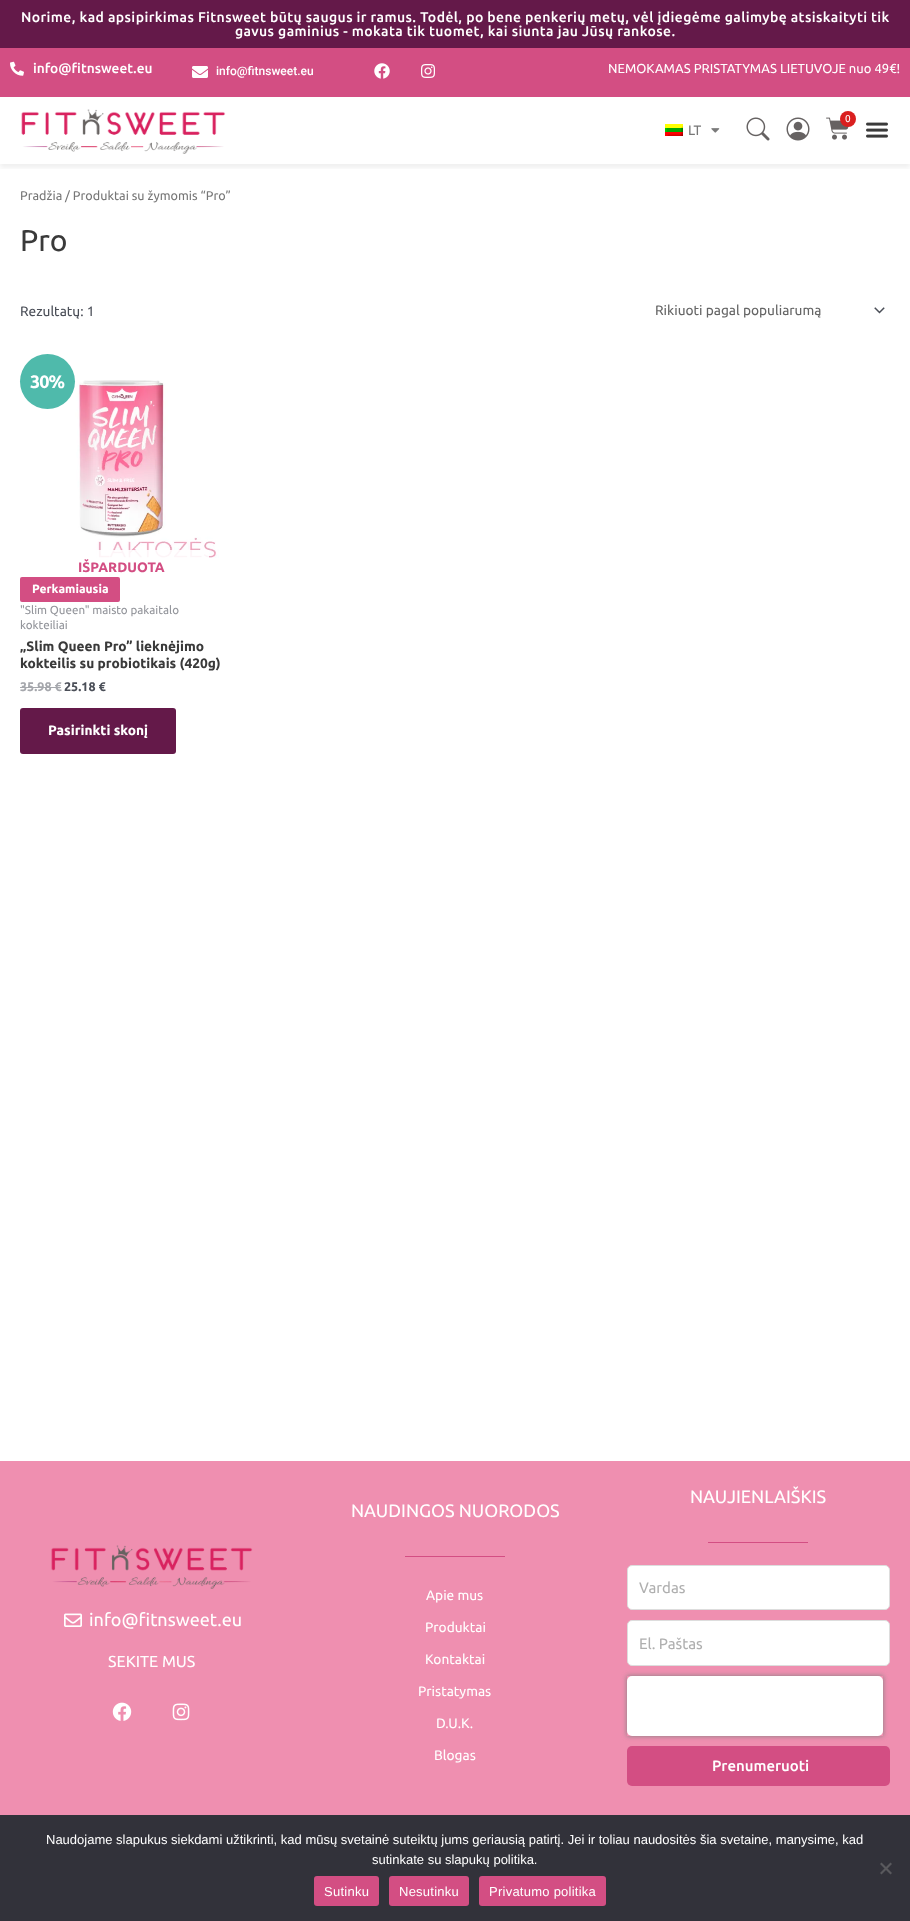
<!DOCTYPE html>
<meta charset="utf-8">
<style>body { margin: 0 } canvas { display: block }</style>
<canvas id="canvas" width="910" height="1921"></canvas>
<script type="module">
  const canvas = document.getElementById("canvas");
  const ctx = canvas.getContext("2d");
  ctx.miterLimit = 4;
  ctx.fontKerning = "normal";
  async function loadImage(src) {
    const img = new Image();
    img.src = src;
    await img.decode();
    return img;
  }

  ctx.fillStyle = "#ffffff";
  ctx.fillRect(0, 0, 910, 1921);
  ctx.fillStyle = "#641949";
  ctx.fillRect(0, 0, 910, 48);
  ctx.letterSpacing = "0.4px";
  ctx.font = "500 14px Ubuntu";
  ctx.fillStyle = "#ffffff";
  ctx.fillText("Norime, kad apsipirkimas Fitnsweet būtų saugus ir ramus. Todėl, po bene penkerių metų, vėl įdiegėme galimybę atsiskaityti tik", 21, 22);
  ctx.fillText("gavus gaminius - mokata tik tuomet, kai siunta jau Jūsų rankose.", 235, 36);
  ctx.fillStyle = "#d34e83";
  ctx.fillRect(0, 48, 910, 49);
  ctx.drawImage(await loadImage("img1.png"), 10, 61, 14, 15);
  ctx.letterSpacing = "0px";
  ctx.font = "500 13.7px Ubuntu";
  ctx.fillStyle = "#ffffff";
  ctx.fillText("info@fitnsweet.eu", 33, 73);
  ctx.drawImage(await loadImage("img2.png"), 192, 66, 16, 12);
  ctx.font = "500 12px Roboto";
  ctx.fillText("info@fitnsweet.eu", 216, 75);
  ctx.drawImage(await loadImage("img3.png"), 374, 63, 16, 16);
  ctx.drawImage(await loadImage("img4.png"), 421, 64, 14, 14);
  ctx.font = "13px Ubuntu";
  ctx.fillText("NEMOKAMAS PRISTATYMAS LIETUVOJE nuo 49€!", 608, 73);
  ctx.save();
  ctx.beginPath();
  ctx.rect(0, 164, 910, 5);
  ctx.clip();
  ctx.fillStyle = "rgba(0, 0, 0, 0.06)";
  ctx.filter = "blur(2.5px)";
  ctx.beginPath();
  ctx.rect(0, 101, 910, 67);
  ctx.fill();
  ctx.filter = "none";
  ctx.restore();
  ctx.drawImage(await loadImage("img5.png"), 21, 109, 205, 45);
  ctx.drawImage(await loadImage("img6.png"), 665, 124, 18, 12);
  ctx.font = "13.7px Ubuntu";
  ctx.fillStyle = "#777777";
  ctx.fillText("LT", 688, 135);
  ctx.drawImage(await loadImage("img7.png"), 711, 128, 9, 5);
  ctx.drawImage(await loadImage("img8.png"), 746, 117, 24, 24);
  ctx.drawImage(await loadImage("img9.png"), 786, 117, 24, 24);
  ctx.drawImage(await loadImage("img10.png"), 826, 117, 23, 23);
  ctx.fillStyle = "#da1f1f";
  ctx.beginPath();
  ctx.arc(848, 119, 8, 0, Math.PI * 2);
  ctx.fill();
  ctx.font = "10px Ubuntu";
  ctx.fillStyle = "#ffffff";
  ctx.fillText("0", 845, 122);
  ctx.drawImage(await loadImage("img11.png"), 866, 122, 22, 16);
  ctx.font = "12.6px Ubuntu";
  ctx.fillStyle = "#777777";
  ctx.fillText("Pradžia / Produktai su žymomis “Pro”", 20, 200);
  ctx.font = "30px Ubuntu";
  ctx.fillStyle = "#3a3a3a";
  ctx.fillText("Pro", 20, 251);
  ctx.font = "13.7px Ubuntu";
  ctx.fillStyle = "#4b4f58";
  ctx.fillText("Rezultatų: 1", 20, 316);
  ctx.drawImage(await loadImage("img12.png"), 874, 307, 11, 7);
  ctx.fillStyle = "#666666";
  ctx.fillText("Rikiuoti pagal populiarumą", 655, 315);
  ctx.drawImage(await loadImage("img13.png"), 36, 380, 183, 178);
  ctx.fillStyle = "#4fbaab";
  ctx.beginPath();
  ctx.arc(47.5, 381.5, 27.5, 0, Math.PI * 2);
  ctx.fill();
  ctx.letterSpacing = "-1px";
  ctx.font = "bold 18px Ubuntu";
  ctx.fillStyle = "#ffffff";
  ctx.fillText("30%", 30, 388);
  ctx.fillStyle = "rgba(255, 255, 255, 0.88)";
  ctx.fillRect(97, 550, 112, 8);
  ctx.letterSpacing = "0px";
  ctx.font = "bold 13.7px Ubuntu";
  ctx.fillStyle = "#d34e83";
  ctx.fillText("IŠPARDUOTA", 78, 572);
  ctx.beginPath();
  ctx.roundRect(20, 577, 100, 25, 2);
  ctx.fill();
  ctx.font = "bold 12px Ubuntu";
  ctx.fillStyle = "#ffffff";
  ctx.fillText("Perkamiausia", 32, 593);
  ctx.font = "11.6px Ubuntu";
  ctx.fillStyle = "#93959b";
  ctx.fillText("\"Slim Queen\" maisto pakaitalo", 20, 614);
  ctx.fillText("kokteiliai", 20, 629);
  ctx.font = "bold 13.7px Ubuntu";
  ctx.fillStyle = "#3a3a3a";
  ctx.fillText("„Slim Queen Pro” lieknėjimo", 20, 651);
  ctx.fillText("kokteilis su probiotikais (420g)", 20, 668);
  ctx.font = "bold 12.5px Ubuntu";
  ctx.fillStyle = "#a5a7ac";
  ctx.fillText("35.98 €", 20, 691);
  ctx.fillRect(20, 687, 41, 1);
  ctx.fillStyle = "#4b4f58";
  ctx.fillText("25.18 €", 64, 691);
  ctx.fillStyle = "#641949";
  ctx.beginPath();
  ctx.roundRect(20, 708, 156, 46, 3);
  ctx.fill();
  ctx.font = "bold 13.7px Ubuntu";
  ctx.fillStyle = "#ffffff";
  ctx.fillText("Pasirinkti skonį", 48, 735);
  ctx.fillStyle = "#ef8fb0";
  ctx.fillRect(0, 1461, 910, 354);
  ctx.drawImage(await loadImage("img14.png"), 51, 1545, 202, 44);
  ctx.drawImage(await loadImage("img15.png"), 64, 1613, 18, 14);
  ctx.font = "18px Ubuntu";
  ctx.fillStyle = "#ffffff";
  ctx.fillText("info@fitnsweet.eu", 89, 1626);
  ctx.font = "16px Ubuntu";
  ctx.fillText("SEKITE MUS", 108, 1667);
  ctx.drawImage(await loadImage("img16.png"), 112, 1702, 20, 19);
  ctx.drawImage(await loadImage("img17.png"), 172, 1703, 18, 18);
  ctx.font = "18px Ubuntu";
  ctx.fillText("NAUDINGOS NUORODOS", 351, 1517);
  ctx.fillStyle = "#d34e83";
  ctx.fillRect(405, 1556, 100, 1);
  ctx.font = "13.7px Ubuntu";
  ctx.fillStyle = "#ffffff";
  ctx.fillText("Apie mus", 426, 1600);
  ctx.fillText("Produktai", 425, 1632);
  ctx.fillText("Kontaktai", 425, 1664);
  ctx.fillText("Pristatymas", 418, 1696);
  ctx.fillText("D.U.K.", 436, 1728);
  ctx.fillText("Blogas", 434, 1760);
  ctx.font = "18px Ubuntu";
  ctx.fillText("NAUJIENLAIŠKIS", 690, 1503);
  ctx.fillStyle = "#d34e83";
  ctx.fillRect(708, 1542, 100, 1);
  ctx.fillStyle = "#ffffff";
  ctx.beginPath();
  ctx.roundRect(627.5, 1565.5, 262, 44, 4.5);
  ctx.fill();
  ctx.strokeStyle = "#dddddd";
  ctx.stroke();
  ctx.font = "15px Ubuntu";
  ctx.fillStyle = "#afafaf";
  ctx.fillText("Vardas", 639, 1593);
  ctx.fillStyle = "#ffffff";
  ctx.beginPath();
  ctx.roundRect(627.5, 1620.5, 262, 45, 4.5);
  ctx.fill();
  ctx.stroke();
  ctx.fillStyle = "#afafaf";
  ctx.fillText("El. Paštas", 639, 1649);
  ctx.fillStyle = "#ffffff";
  ctx.beginPath();
  ctx.roundRect(627, 1676, 256, 60, 5);
  ctx.fill();
  ctx.save();
  ctx.beginPath();
  ctx.moveTo(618, 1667);
  ctx.lineTo(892, 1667);
  ctx.lineTo(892, 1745);
  ctx.lineTo(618, 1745);
  ctx.closePath();
  ctx.moveTo(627, 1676);
  ctx.lineTo(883, 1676);
  ctx.lineTo(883, 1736);
  ctx.lineTo(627, 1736);
  ctx.closePath();
  ctx.clip("evenodd");
  ctx.fillStyle = "#808080";
  ctx.filter = "blur(2.5px)";
  ctx.beginPath();
  ctx.rect(627, 1676, 256, 60);
  ctx.fill();
  ctx.filter = "none";
  ctx.restore();
  ctx.fillStyle = "#d34e83";
  ctx.beginPath();
  ctx.roundRect(627, 1746, 263, 40, 5);
  ctx.fill();
  ctx.font = "500 15px Ubuntu";
  ctx.fillStyle = "#ffffff";
  ctx.fillText("Prenumeruoti", 712, 1771);
  ctx.fillStyle = "#32323a";
  ctx.fillRect(0, 1815, 910, 106);
  ctx.font = "13px Liberation Sans";
  ctx.fillStyle = "#ffffff";
  ctx.fillText("Naudojame slapukus siekdami užtikrinti, kad mūsų svetainė suteiktų jums geriausią patirtį. Jei ir toliau naudositės šia svetaine, manysime, kad", 46, 1844);
  ctx.fillText("sutinkate su slapukų politika.", 372, 1864);
  ctx.fillStyle = "#59595d";
  ctx.beginPath();
  ctx.moveTo(890.5, 1862.5);
  ctx.lineTo(892, 1864);
  ctx.lineTo(881.5, 1874.5);
  ctx.lineTo(880, 1873);
  ctx.closePath();
  ctx.fill();
  ctx.beginPath();
  ctx.moveTo(880, 1864);
  ctx.lineTo(881.5, 1862.5);
  ctx.lineTo(892, 1873);
  ctx.lineTo(890.5, 1874.5);
  ctx.closePath();
  ctx.fill();
  ctx.fillStyle = "#d34e83";
  ctx.beginPath();
  ctx.roundRect(314, 1876, 65, 30, 3);
  ctx.fill();
  ctx.letterSpacing = "0.25px";
  ctx.fillStyle = "#ffffff";
  ctx.fillText("Sutinku", 324, 1896);
  ctx.fillStyle = "#d34e83";
  ctx.beginPath();
  ctx.roundRect(389, 1876, 80, 30, 3);
  ctx.fill();
  ctx.fillStyle = "#ffffff";
  ctx.fillText("Nesutinku", 399, 1896);
  ctx.fillStyle = "#d34e83";
  ctx.beginPath();
  ctx.roundRect(479, 1876, 127, 30, 3);
  ctx.fill();
  ctx.fillStyle = "#ffffff";
  ctx.fillText("Privatumo politika", 489, 1896);
</script>
